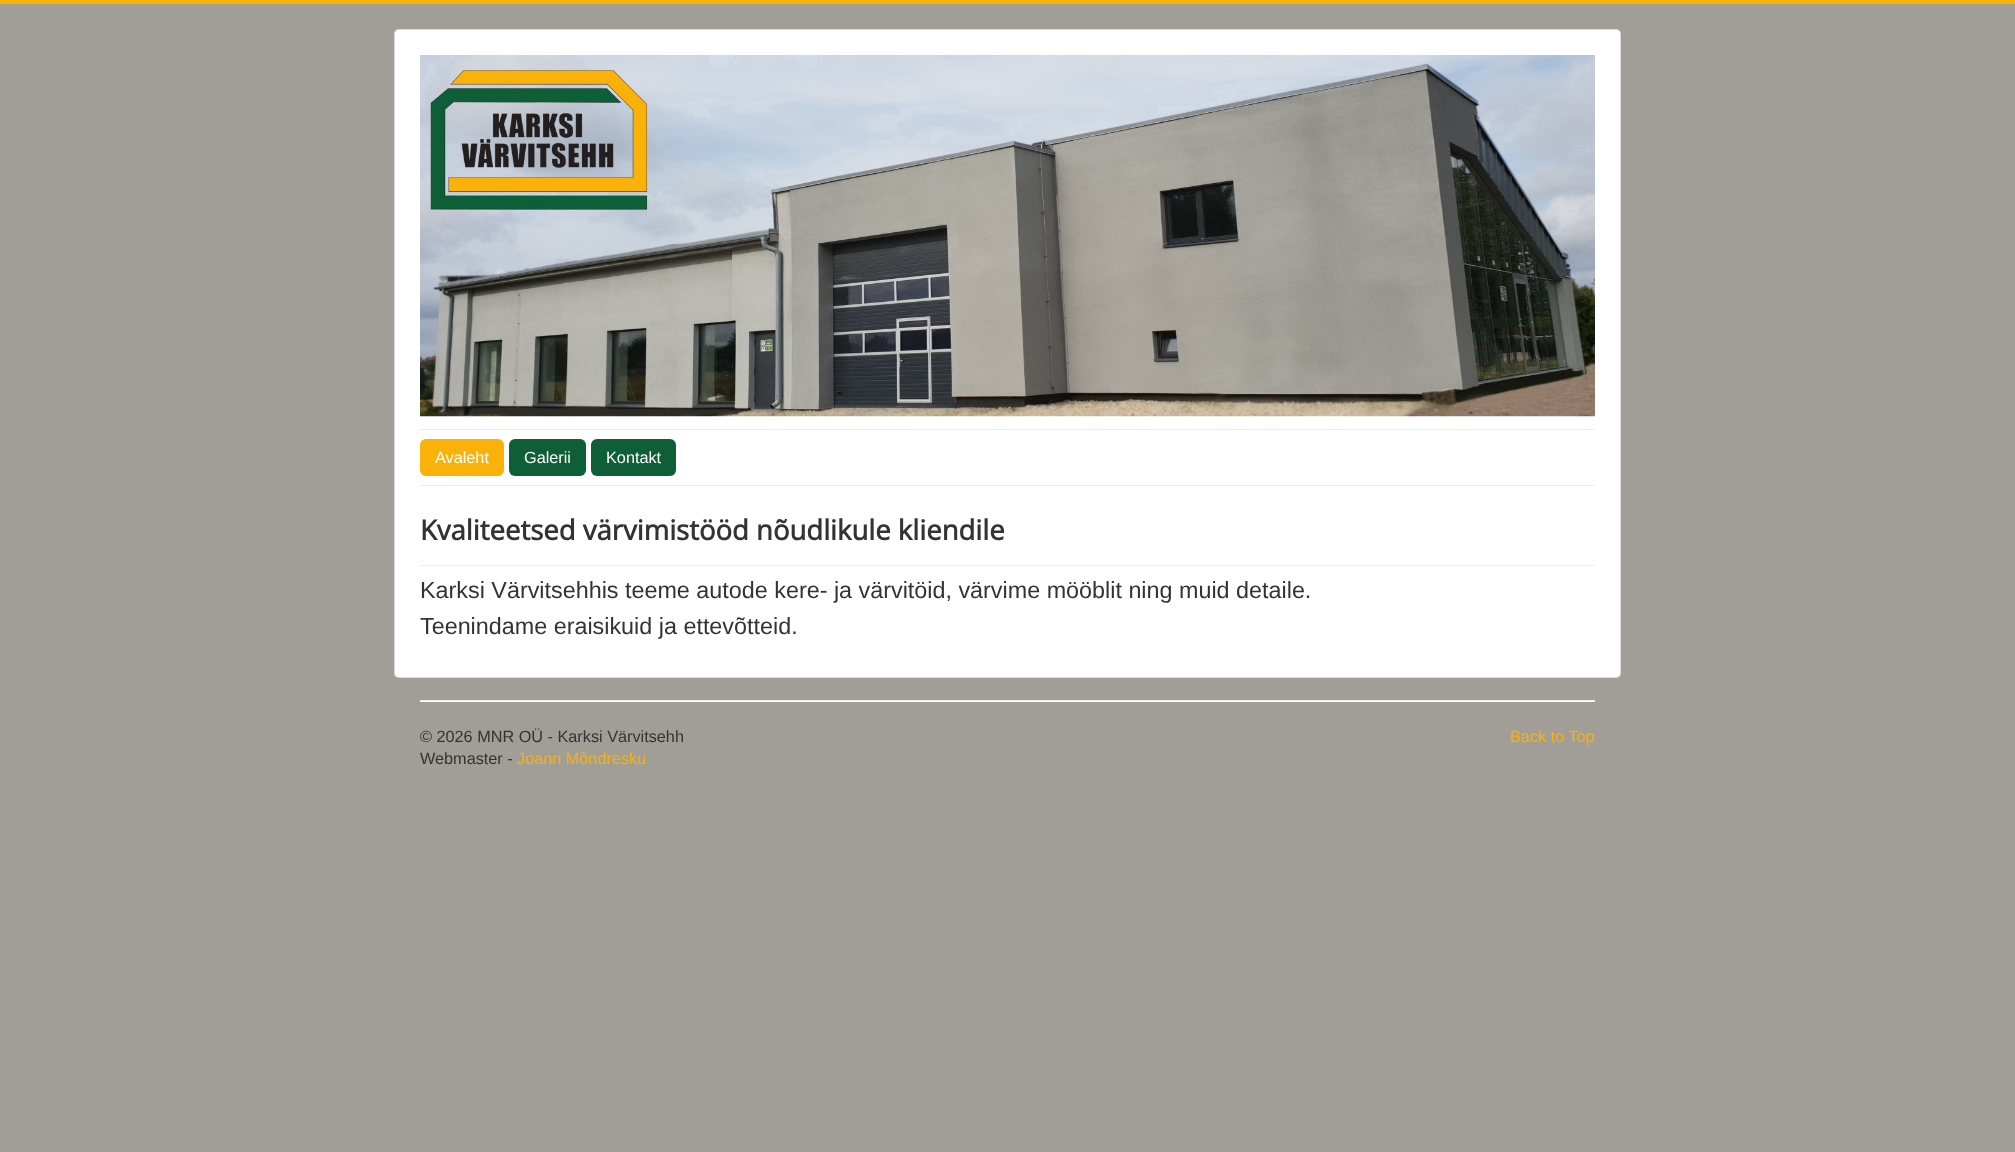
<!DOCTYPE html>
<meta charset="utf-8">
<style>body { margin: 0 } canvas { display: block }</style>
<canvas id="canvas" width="2015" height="1152"></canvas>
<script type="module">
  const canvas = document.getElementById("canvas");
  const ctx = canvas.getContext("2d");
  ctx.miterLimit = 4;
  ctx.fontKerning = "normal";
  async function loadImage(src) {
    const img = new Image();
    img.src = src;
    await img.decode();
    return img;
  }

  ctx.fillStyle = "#a19e97";
  ctx.fillRect(0, 0, 2015, 1152);
  ctx.fillStyle = "#fab10a";
  ctx.fillRect(0, 0, 2015, 4);
  ctx.fillStyle = "#ffffff";
  ctx.beginPath();
  ctx.roundRect(394, 29, 1227, 649, 5);
  ctx.fill();
  ctx.beginPath();
  ctx.roundRect(394.5, 29.5, 1226, 648, 4.5);
  ctx.strokeStyle = "rgba(0, 0, 0, 0.15)";
  ctx.stroke();
  ctx.drawImage(await loadImage("img1.png"), 420, 55, 1175, 362);
  ctx.fillStyle = "#ececec";
  ctx.fillRect(420, 429, 1175, 1);
  ctx.fillRect(420, 485, 1175, 1);
  ctx.fillStyle = "#fab10a";
  ctx.beginPath();
  ctx.roundRect(420, 439, 84, 37, 6);
  ctx.fill();
  ctx.font = "16.25px Liberation Sans";
  ctx.fillStyle = "#ffffff";
  ctx.fillText("Avaleht", 435, 463);
  ctx.fillStyle = "#0e5f37";
  ctx.beginPath();
  ctx.roundRect(509, 439, 77, 37, 6);
  ctx.fill();
  ctx.fillStyle = "#ffffff";
  ctx.fillText("Galerii", 524, 463);
  ctx.fillStyle = "#0e5f37";
  ctx.beginPath();
  ctx.roundRect(591, 439, 85, 37, 6);
  ctx.fill();
  ctx.fillStyle = "#ffffff";
  ctx.fillText("Kontakt", 606, 463);
  ctx.fillStyle = "#eeeeee";
  ctx.fillRect(420, 565, 1175, 1);
  ctx.font = "bold 27.5px Open Sans";
  ctx.fillStyle = "#333333";
  ctx.fillText("Kvaliteetsed värvimistööd nõudlikule kliendile", 420, 540);
  ctx.font = "23.35px Liberation Sans";
  ctx.fillText("Karksi Värvitsehhis teeme autode kere- ja värvitöid, värvime mööblit ning muid detaile.", 420, 598);
  ctx.fillText("Teenindame eraisikuid ja ettevõtteid.", 420, 634);
  ctx.fillStyle = "#eeeeee";
  ctx.fillRect(420, 700, 1175, 1);
  ctx.fillStyle = "#ffffff";
  ctx.fillRect(420, 701, 1175, 1);
  ctx.font = "16.25px Liberation Sans";
  ctx.fillStyle = "#333333";
  ctx.fillText("© 2026 MNR OÜ - Karksi Värvitsehh", 420, 742);
  ctx.fillText("Webmaster -", 420, 764);
  ctx.fillStyle = "#fab10a";
  ctx.fillText("Joann Mõndresku", 517, 764);
  ctx.fillText("Back to Top", 1510, 742);
</script>
